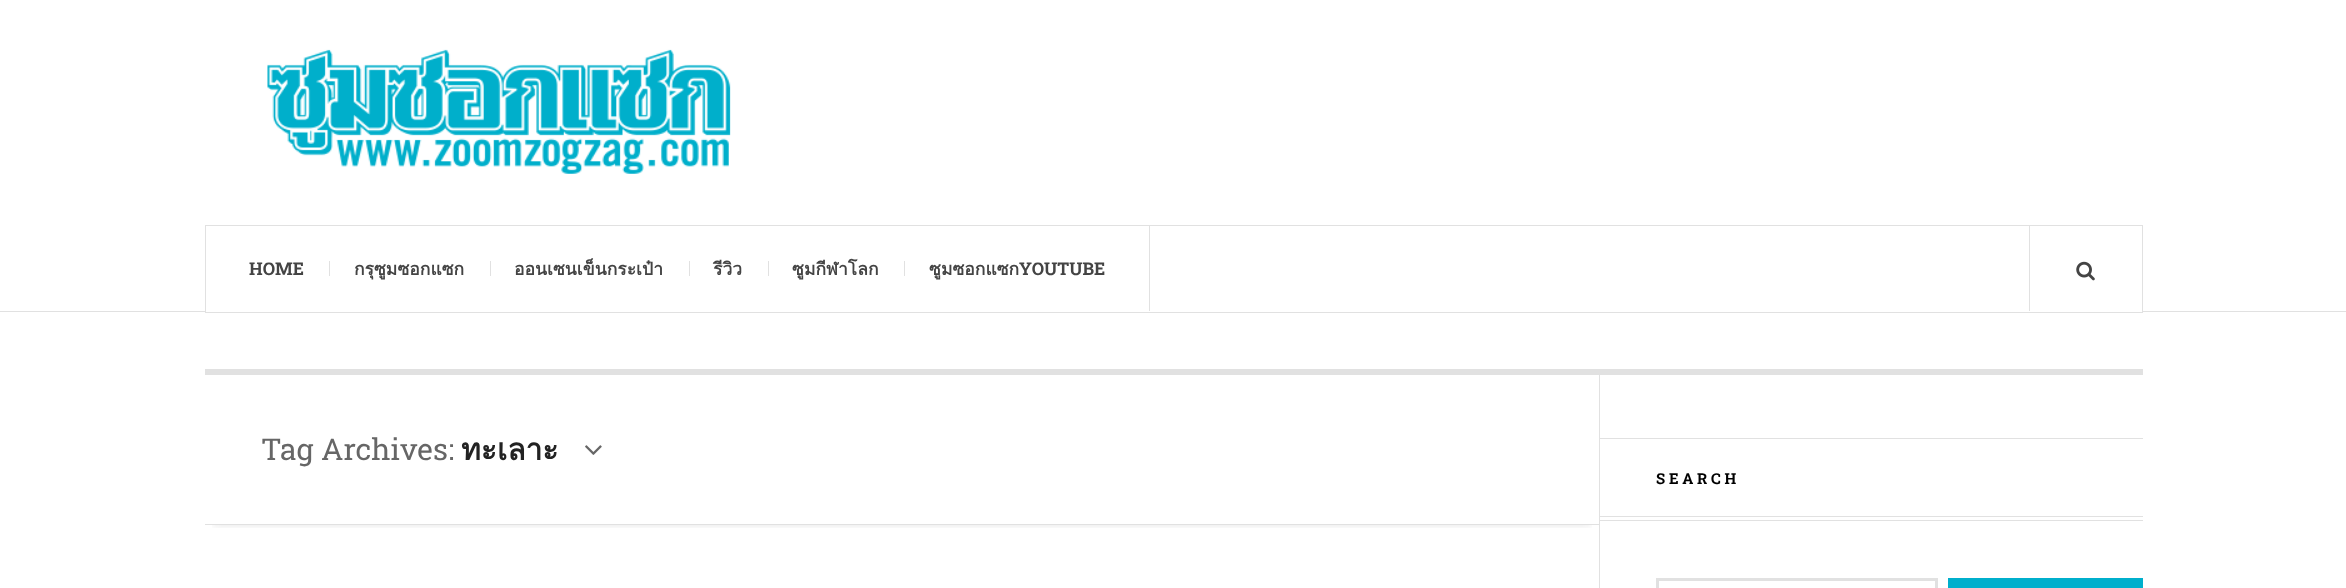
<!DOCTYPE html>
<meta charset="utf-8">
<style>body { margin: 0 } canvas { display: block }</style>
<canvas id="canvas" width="2346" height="588"></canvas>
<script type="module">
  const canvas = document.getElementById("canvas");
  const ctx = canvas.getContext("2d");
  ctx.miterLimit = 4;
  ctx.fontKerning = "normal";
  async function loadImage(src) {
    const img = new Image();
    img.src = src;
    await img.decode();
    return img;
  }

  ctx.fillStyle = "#ffffff";
  ctx.fillRect(0, 0, 2346, 588);
  ctx.fillStyle = "#e1e1e1";
  ctx.fillRect(0, 311, 2346, 1);
  ctx.drawImage(await loadImage("img1.png"), 267, 49, 464, 125);
  ctx.fillStyle = "#ffffff";
  ctx.fillRect(206, 311, 1936, 1);
  ctx.strokeStyle = "#e1e1e1";
  ctx.strokeRect(205.5, 225.5, 1937, 87);
  ctx.fillStyle = "#e1e1e1";
  ctx.fillRect(1149, 226, 1, 85);
  ctx.font = "bold 17.5px Roboto Slab";
  ctx.fillStyle = "#444444";
  ctx.fillText("HOME", 249, 275);
  ctx.fillStyle = "#e1e1e1";
  ctx.fillRect(329, 261, 1, 15);
  ctx.font = "bold 17.5px Loma";
  ctx.fillStyle = "#444444";
  ctx.fillText("กรุซูมซอกแซก", 354, 275);
  ctx.fillStyle = "#e1e1e1";
  ctx.fillRect(490, 261, 1, 15);
  ctx.fillStyle = "#444444";
  ctx.fillText("ออนเซนเข็นกระเป๋า", 514, 275);
  ctx.fillStyle = "#e1e1e1";
  ctx.fillRect(689, 261, 1, 15);
  ctx.fillStyle = "#444444";
  ctx.fillText("รีวิว", 713, 275);
  ctx.fillStyle = "#e1e1e1";
  ctx.fillRect(768, 261, 1, 15);
  ctx.fillStyle = "#444444";
  ctx.fillText("ซูมกีฬาโลก", 792, 275);
  ctx.fillStyle = "#e1e1e1";
  ctx.fillRect(904, 261, 1, 15);
  ctx.fillStyle = "#444444";
  ctx.fillText("ซูมซอกแซก", 929, 275);
  ctx.font = "bold 17.5px Roboto Slab";
  ctx.fillText("YOUTUBE", 1019, 275);
  ctx.fillStyle = "#e1e1e1";
  ctx.fillRect(2029, 226, 1, 85);
  ctx.drawImage(await loadImage("img2.png"), 2076, 261, 19, 20);
  ctx.fillRect(205, 369, 1938, 6);
  ctx.fillRect(1599, 375, 1, 213);
  ctx.save();
  ctx.beginPath();
  ctx.rect(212, 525, 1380, 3);
  ctx.clip();
  ctx.fillStyle = "rgba(0, 0, 0, 0.1)";
  ctx.filter = "blur(4px)";
  ctx.beginPath();
  ctx.rect(213, 390, 1378, 135);
  ctx.fill();
  ctx.filter = "none";
  ctx.restore();
  ctx.fillRect(205, 524, 1394, 1);
  ctx.font = "30px Roboto Slab";
  ctx.fillStyle = "#666666";
  ctx.fillText("Tag Archives:", 261, 460);
  ctx.font = "bold 30px Loma";
  ctx.fillStyle = "#222222";
  ctx.fillText("ทะเลาะ", 461, 460);
  ctx.drawImage(await loadImage("img3.png"), 585, 445, 17, 10);
  ctx.fillStyle = "#e1e1e1";
  ctx.fillRect(1600, 438, 543, 1);
  ctx.fillRect(1600, 516, 543, 1);
  ctx.fillRect(1600, 520, 543, 1);
  ctx.letterSpacing = "3.75px";
  ctx.font = "bold 15px Roboto Slab";
  ctx.fillStyle = "#000000";
  ctx.fillText("SEARCH", 1656, 484);
  ctx.lineWidth = 3;
  ctx.strokeRect(1657.5, 579.5, 279, 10);
  ctx.fillStyle = "#00afcc";
  ctx.fillRect(1948, 578, 195, 10);
</script>
